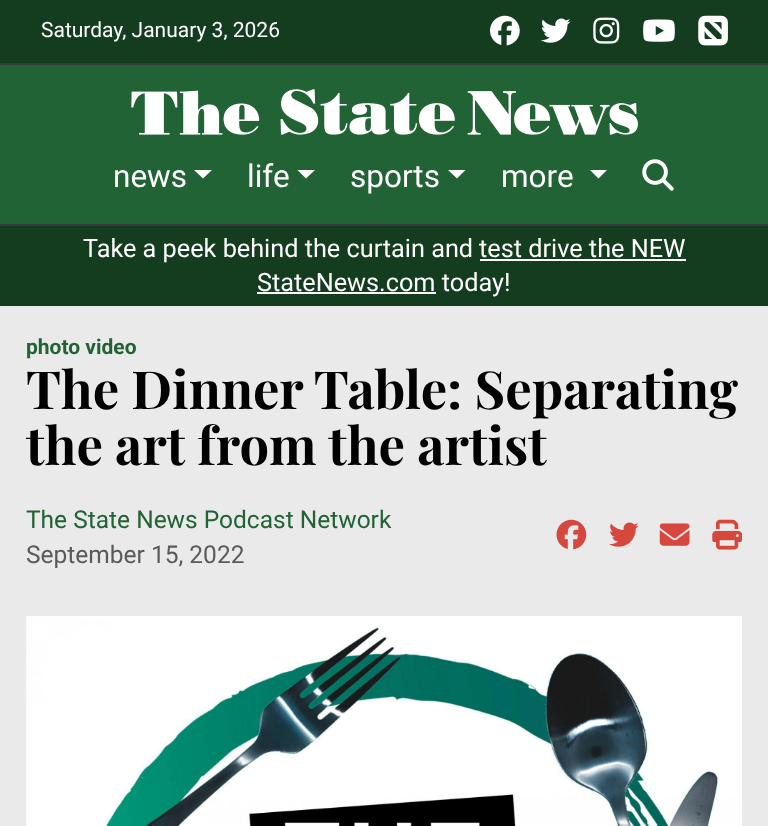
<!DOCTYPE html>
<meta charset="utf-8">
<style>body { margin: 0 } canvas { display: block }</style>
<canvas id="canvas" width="768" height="826"></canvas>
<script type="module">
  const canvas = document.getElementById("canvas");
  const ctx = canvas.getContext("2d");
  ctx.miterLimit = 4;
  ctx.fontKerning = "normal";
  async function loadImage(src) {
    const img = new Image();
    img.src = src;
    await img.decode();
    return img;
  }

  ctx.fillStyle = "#eaeaea";
  ctx.fillRect(0, 0, 768, 826);
  ctx.fillStyle = "#143d20";
  ctx.fillRect(0, 0, 768, 63);
  ctx.font = "21px Roboto";
  ctx.fillStyle = "#ffffff";
  ctx.fillText("Saturday, January 3, 2026", 41, 37);
  ctx.drawImage(await loadImage("img1.png"), 490, 15, 30, 31);
  ctx.drawImage(await loadImage("img2.png"), 541, 18, 30, 25);
  ctx.drawImage(await loadImage("img3.png"), 593, 17, 27, 27);
  ctx.drawImage(await loadImage("img4.png"), 643, 19, 32, 23);
  ctx.drawImage(await loadImage("img5.png"), 698, 15, 30, 31);
  ctx.fillStyle = "#216334";
  ctx.fillRect(0, 65, 768, 159);
  ctx.fillStyle = "#343a40";
  ctx.fillRect(0, 63, 768, 2);
  ctx.fillRect(0, 224, 768, 2);
  ctx.drawImage(await loadImage("img6.png"), 131, 89, 507, 46);
  ctx.font = "31.5px Roboto";
  ctx.fillStyle = "#ffffff";
  ctx.fillText("news", 113, 187);
  ctx.beginPath();
  ctx.moveTo(194, 170);
  ctx.lineTo(212, 170);
  ctx.lineTo(203, 178.5);
  ctx.closePath();
  ctx.fill();
  ctx.fillText("life", 247, 187);
  ctx.beginPath();
  ctx.moveTo(297.5, 170);
  ctx.lineTo(315, 170);
  ctx.lineTo(306, 178.5);
  ctx.closePath();
  ctx.fill();
  ctx.fillText("sports", 350, 187);
  ctx.beginPath();
  ctx.moveTo(448, 170);
  ctx.lineTo(465.5, 170);
  ctx.lineTo(457, 178.5);
  ctx.closePath();
  ctx.fill();
  ctx.fillText("more", 501, 187);
  ctx.beginPath();
  ctx.moveTo(590, 170);
  ctx.lineTo(607, 170);
  ctx.lineTo(598.5, 178.5);
  ctx.closePath();
  ctx.fill();
  ctx.drawImage(await loadImage("img7.png"), 642, 159, 32, 32);
  ctx.fillStyle = "#143d20";
  ctx.fillRect(0, 226, 768, 80);
  ctx.font = "25.25px Roboto";
  ctx.fillStyle = "#ffffff";
  ctx.fillText("Take a peek behind the curtain and", 83, 257);
  ctx.fillText("test drive the NEW", 479, 257);
  ctx.fillRect(480, 259, 206, 2);
  ctx.fillRect(257, 292, 179, 2);
  ctx.fillText("StateNews.com today!", 257, 291);
  ctx.font = "bold 21px Roboto";
  ctx.fillStyle = "#216334";
  ctx.fillText("photo video", 26, 354);
  ctx.font = "bold 52.5px Playfair Display";
  ctx.fillStyle = "#020100";
  ctx.fillText("The Dinner Table: Separating", 26, 409);
  ctx.fillText("the art from the artist", 26, 465);
  ctx.font = "24.5px Roboto";
  ctx.fillStyle = "#216334";
  ctx.fillText("The State News Podcast Network", 26, 528);
  ctx.fillStyle = "#5c5b5b";
  ctx.fillText("September 15, 2022", 26, 563);
  ctx.drawImage(await loadImage("img8.png"), 556, 519, 31, 31);
  ctx.drawImage(await loadImage("img9.png"), 609, 522, 30, 25);
  ctx.drawImage(await loadImage("img10.png"), 659, 523, 31, 23);
  ctx.drawImage(await loadImage("img11.png"), 712, 519, 30, 31);
  ctx.drawImage(await loadImage("img12.png"), 26, 616, 716, 210);
</script>
